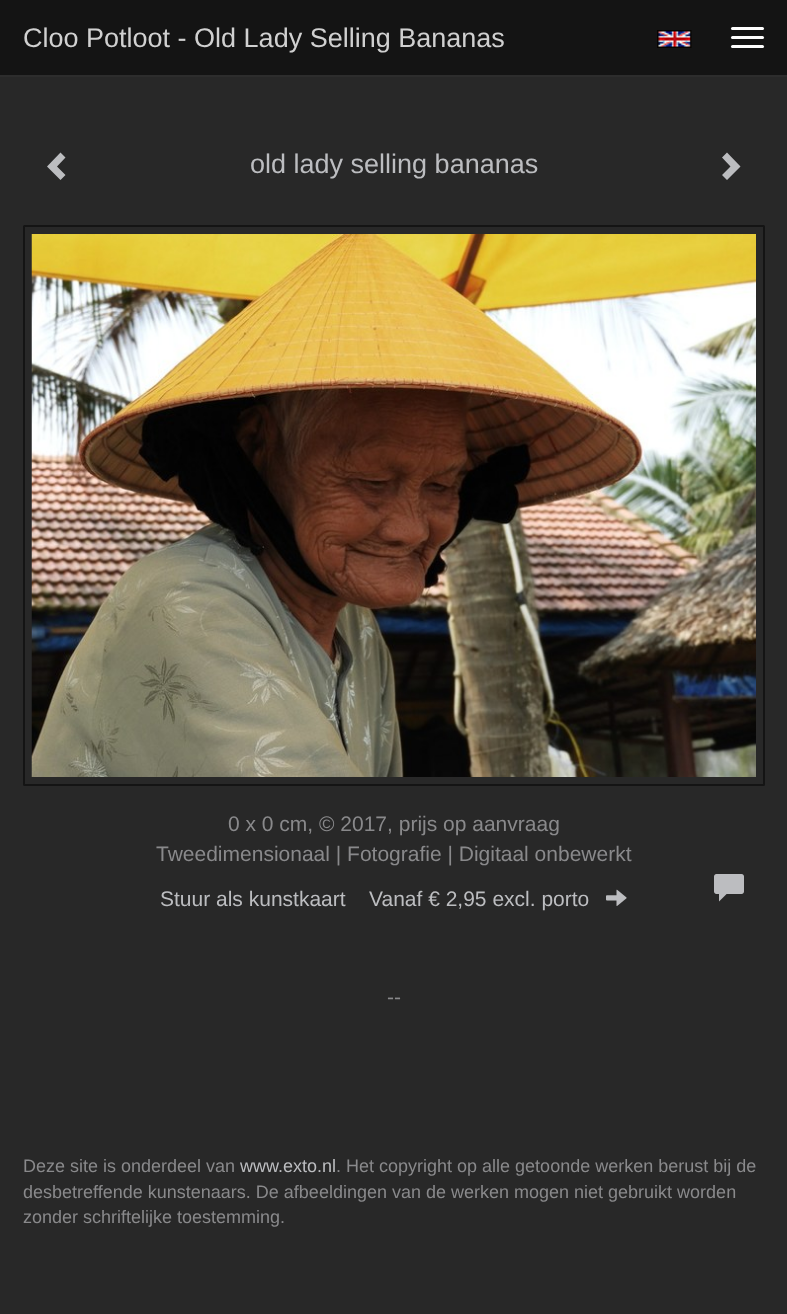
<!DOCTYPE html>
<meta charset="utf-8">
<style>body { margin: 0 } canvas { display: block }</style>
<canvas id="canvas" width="787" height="1314"></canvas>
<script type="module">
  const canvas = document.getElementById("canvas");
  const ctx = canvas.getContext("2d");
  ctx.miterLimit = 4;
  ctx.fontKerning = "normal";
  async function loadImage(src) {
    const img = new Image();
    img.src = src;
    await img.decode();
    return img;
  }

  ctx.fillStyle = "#282828";
  ctx.fillRect(0, 0, 787, 1314);
  ctx.fillStyle = "#141414";
  ctx.fillRect(0, 0, 787, 75);
  ctx.fillStyle = "#2d2d2d";
  ctx.fillRect(0, 75, 787, 2);
  ctx.font = "27px Liberation Sans";
  ctx.fillStyle = "#d0d0d0";
  ctx.fillText("Cloo Potloot - Old Lady Selling Bananas", 23, 47);
  ctx.fillStyle = "#ffffff";
  ctx.beginPath();
  ctx.roundRect(731, 27, 33, 3, 1.5);
  ctx.fill();
  ctx.beginPath();
  ctx.roundRect(731, 36, 33, 3, 1.5);
  ctx.fill();
  ctx.beginPath();
  ctx.roundRect(731, 45, 33, 3, 1.5);
  ctx.fill();
  ctx.drawImage(await loadImage("img1.png"), 657, 30, 35, 18);
  ctx.fillStyle = "#bcbdc0";
  ctx.beginPath();
  ctx.moveTo(65.5, 157.5);
  ctx.lineTo(57, 166.5);
  ctx.lineTo(65.5, 175);
  ctx.lineTo(60.5, 180);
  ctx.lineTo(47, 166.5);
  ctx.lineTo(60.5, 152.5);
  ctx.closePath();
  ctx.fill();
  ctx.fillText("old lady selling bananas", 250, 173);
  ctx.beginPath();
  ctx.moveTo(740.5, 166.5);
  ctx.lineTo(727, 180);
  ctx.lineTo(722, 175);
  ctx.lineTo(730.5, 166.5);
  ctx.lineTo(722, 157.5);
  ctx.lineTo(727, 152.5);
  ctx.closePath();
  ctx.fill();
  ctx.beginPath();
  ctx.roundRect(24, 226, 740, 559, 0.5);
  ctx.strokeStyle = "#141414";
  ctx.lineWidth = 2;
  ctx.stroke();
  ctx.drawImage(await loadImage("img2.png"), 31, 234, 725, 543);
  ctx.font = "21px Liberation Sans";
  ctx.fillStyle = "#89898b";
  ctx.fillText("0 x 0 cm, © 2017, prijs op aanvraag", 228, 831);
  ctx.fillText("Tweedimensionaal | Fotografie | Digitaal onbewerkt", 156, 861);
  ctx.fillStyle = "#bcbdc0";
  ctx.fillText("Stuur als kunstkaart", 160, 906);
  ctx.fillText("Vanaf € 2,95 excl. porto", 369, 906);
  ctx.drawImage(await loadImage("img3.png"), 606, 889, 21, 17);
  ctx.drawImage(await loadImage("img4.png"), 714, 874, 30, 28);
  ctx.fillStyle = "#89898b";
  ctx.fillText("--", 387, 1004);
  ctx.font = "18px Liberation Sans";
  ctx.fillText("Deze site is onderdeel van", 23, 1172);
  ctx.fillStyle = "#bcbdc0";
  ctx.fillText("www.exto.nl", 240, 1172);
  ctx.fillStyle = "#89898b";
  ctx.fillText(". Het copyright op alle getoonde werken berust bij de", 336, 1172);
  ctx.fillText("desbetreffende kunstenaars. De afbeeldingen van de werken mogen niet gebruikt worden", 23, 1198);
  ctx.fillText("zonder schriftelijke toestemming.", 23, 1223);
</script>
